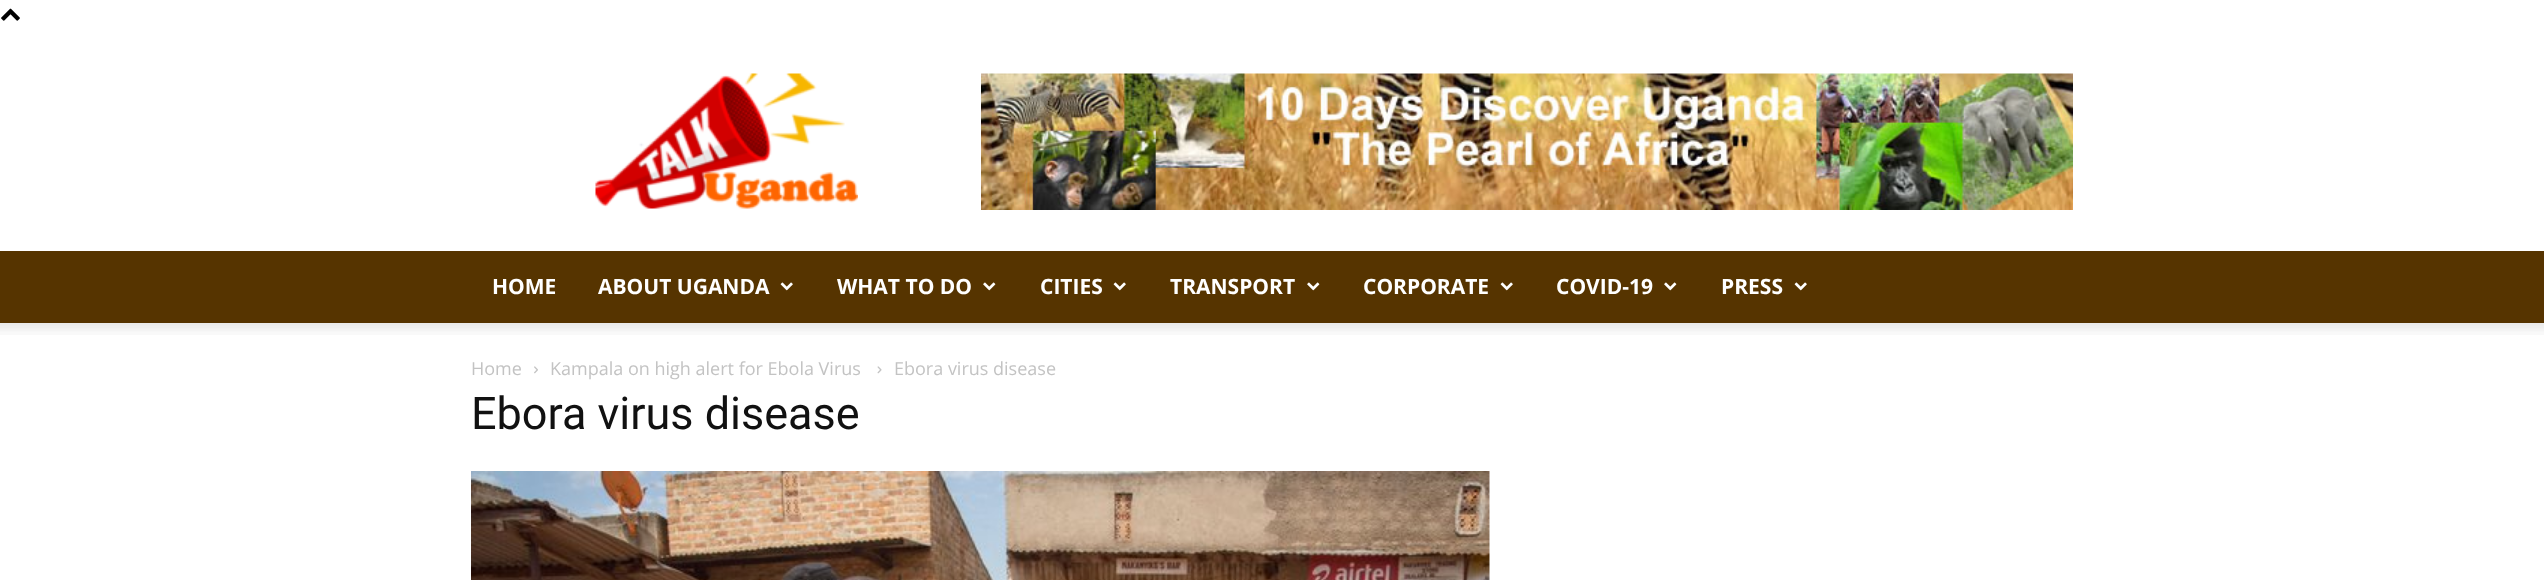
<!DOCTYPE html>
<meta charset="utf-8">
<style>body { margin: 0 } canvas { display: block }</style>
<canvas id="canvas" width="2544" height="580"></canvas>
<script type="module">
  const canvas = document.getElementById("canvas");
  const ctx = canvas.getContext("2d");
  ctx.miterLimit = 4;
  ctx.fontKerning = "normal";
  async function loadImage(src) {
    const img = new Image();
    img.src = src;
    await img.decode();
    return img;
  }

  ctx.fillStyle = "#ffffff";
  ctx.fillRect(0, 0, 2544, 580);
  ctx.drawImage(await loadImage("img1.png"), 1, 8, 19, 13);
  ctx.drawImage(await loadImage("img2.png"), 595, 73, 263, 136);
  ctx.drawImage(await loadImage("img3.png"), 981, 73, 1092, 137);
  ctx.fillStyle = "#563400";
  ctx.fillRect(0, 251, 2544, 72);
  ctx.font = "bold 21px Open Sans";
  ctx.fillStyle = "#ffffff";
  ctx.fillText("HOME", 492, 294);
  ctx.fillText("ABOUT UGANDA", 598, 294);
  ctx.drawImage(await loadImage("img4.png"), 780, 282, 13, 9);
  ctx.fillText("WHAT TO DO", 837, 294);
  ctx.drawImage(await loadImage("img5.png"), 983, 282, 13, 9);
  ctx.fillText("CITIES", 1040, 294);
  ctx.drawImage(await loadImage("img4.png"), 1113, 282, 13, 9);
  ctx.fillText("TRANSPORT", 1170, 294);
  ctx.drawImage(await loadImage("img5.png"), 1307, 282, 13, 9);
  ctx.fillText("CORPORATE", 1363, 294);
  ctx.drawImage(await loadImage("img4.png"), 1500, 282, 13, 9);
  ctx.fillText("COVID-19", 1556, 294);
  ctx.drawImage(await loadImage("img5.png"), 1664, 282, 13, 9);
  ctx.fillText("PRESS", 1721, 294);
  ctx.drawImage(await loadImage("img4.png"), 1794, 282, 13, 9);
  ctx.drawImage(await loadImage("img6.png"), 0, 323, 2544, 12);
  ctx.font = "18px Open Sans";
  ctx.fillStyle = "#c3c3c3";
  ctx.fillText("Home", 471, 375);
  ctx.drawImage(await loadImage("img7.png"), 534, 366, 4, 8);
  ctx.fillText("Kampala on high alert for Ebola Virus", 550, 375);
  ctx.drawImage(await loadImage("img8.png"), 877, 366, 5, 8);
  ctx.fillText("Ebora virus disease", 894, 375);
  ctx.font = "45px Roboto";
  ctx.fillStyle = "#111111";
  ctx.fillText("Ebora virus disease", 471, 429);
  ctx.drawImage(await loadImage("img9.png"), 471, 471, 1019, 109);
</script>
